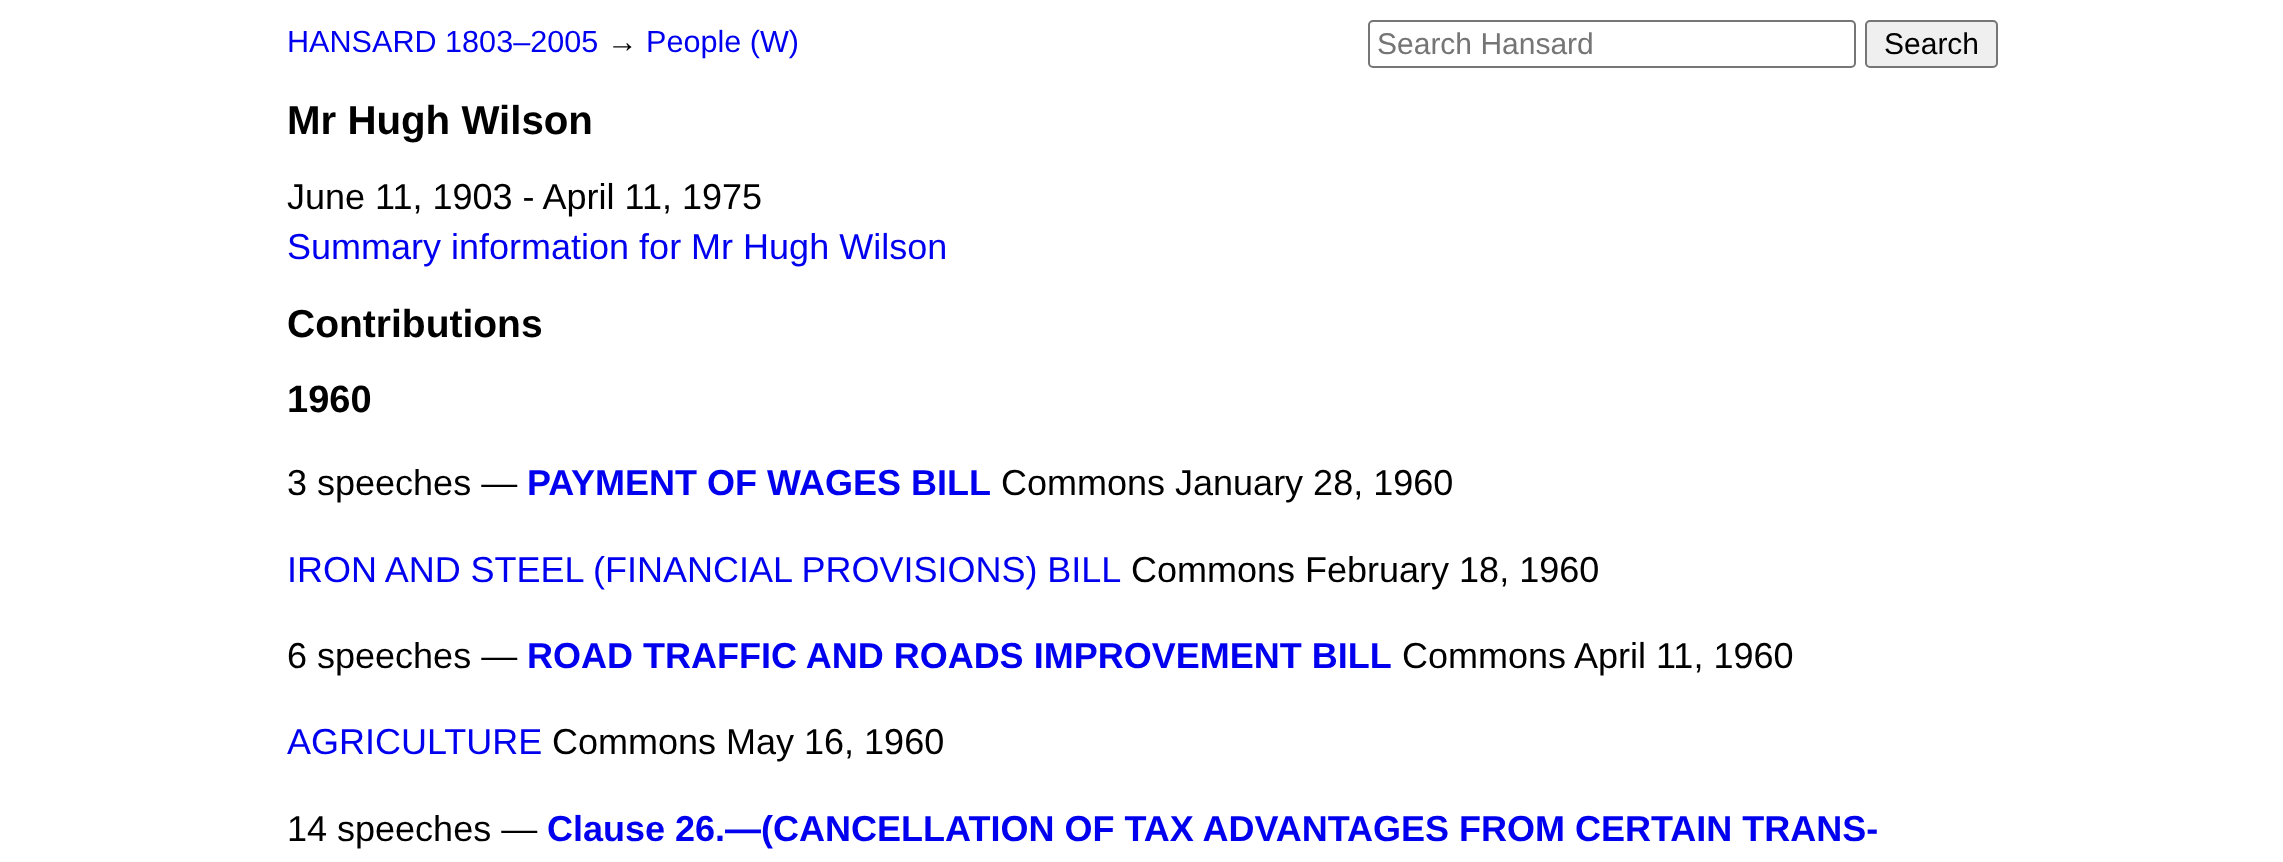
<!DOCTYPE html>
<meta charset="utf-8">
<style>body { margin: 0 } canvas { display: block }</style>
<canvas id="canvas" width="2283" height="862"></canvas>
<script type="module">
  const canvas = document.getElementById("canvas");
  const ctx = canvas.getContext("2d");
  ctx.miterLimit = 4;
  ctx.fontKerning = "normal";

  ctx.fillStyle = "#ffffff";
  ctx.fillRect(0, 0, 2283, 862);
  ctx.font = "30.6px Liberation Sans";
  ctx.fillStyle = "#0000ee";
  ctx.fillText("HANSARD 1803–2005", 287, 52);
  ctx.fillStyle = "#000000";
  ctx.fillText("→", 607, 52);
  ctx.fillStyle = "#0000ee";
  ctx.fillText("People (W)", 646, 52);
  ctx.beginPath();
  ctx.roundRect(1369, 21, 486, 46, 4);
  ctx.strokeStyle = "#767676";
  ctx.lineWidth = 2;
  ctx.stroke();
  ctx.font = "30px Liberation Sans";
  ctx.fillStyle = "#757575";
  ctx.fillText("Search Hansard", 1377, 54);
  ctx.fillStyle = "#efefef";
  ctx.beginPath();
  ctx.roundRect(1866, 21, 131, 46, 4);
  ctx.fill();
  ctx.stroke();
  ctx.fillStyle = "#000000";
  ctx.fillText("Search", 1884, 54);
  ctx.font = "bold 40.25px Liberation Sans";
  ctx.fillText("Mr Hugh Wilson", 287, 134);
  ctx.font = "36px Liberation Sans";
  ctx.fillText("June 11, 1903 - April 11, 1975", 287, 209);
  ctx.fillStyle = "#0000ee";
  ctx.fillText("Summary information for Mr Hugh Wilson", 287, 259);
  ctx.font = "bold 39px Liberation Sans";
  ctx.fillStyle = "#000000";
  ctx.fillText("Contributions", 287, 337);
  ctx.font = "bold 38px Liberation Sans";
  ctx.fillText("1960", 287, 412);
  ctx.font = "36px Liberation Sans";
  ctx.fillText("3 speeches —", 287, 495);
  ctx.font = "bold 36px Liberation Sans";
  ctx.fillStyle = "#0000ee";
  ctx.fillText("PAYMENT OF WAGES BILL", 527, 495);
  ctx.font = "36px Liberation Sans";
  ctx.fillStyle = "#000000";
  ctx.fillText("Commons January 28, 1960", 1001, 495);
  ctx.wordSpacing = "-0.25px";
  ctx.fillStyle = "#0000ee";
  ctx.fillText("IRON AND STEEL (FINANCIAL PROVISIONS) BILL", 287, 582);
  ctx.wordSpacing = "0px";
  ctx.fillStyle = "#000000";
  ctx.fillText("Commons February 18, 1960", 1131, 582);
  ctx.fillText("6 speeches —", 287, 668);
  ctx.font = "bold 36px Liberation Sans";
  ctx.fillStyle = "#0000ee";
  ctx.fillText("ROAD TRAFFIC AND ROADS IMPROVEMENT BILL", 527, 668);
  ctx.font = "36px Liberation Sans";
  ctx.fillStyle = "#000000";
  ctx.fillText("Commons", 1402, 668);
  ctx.fillText("April 11, 1960", 1574, 668);
  ctx.fillStyle = "#0000ee";
  ctx.fillText("AGRICULTURE", 287, 754);
  ctx.fillStyle = "#000000";
  ctx.fillText("Commons May 16, 1960", 552, 754);
  ctx.fillText("14 speeches —", 287, 841);
  ctx.font = "bold 36px Liberation Sans";
  ctx.fillStyle = "#0000ee";
  ctx.fillText("Clause 26.—(CANCELLATION OF TAX ADVANTAGES FROM CERTAIN TRANS-", 547, 841);
</script>
